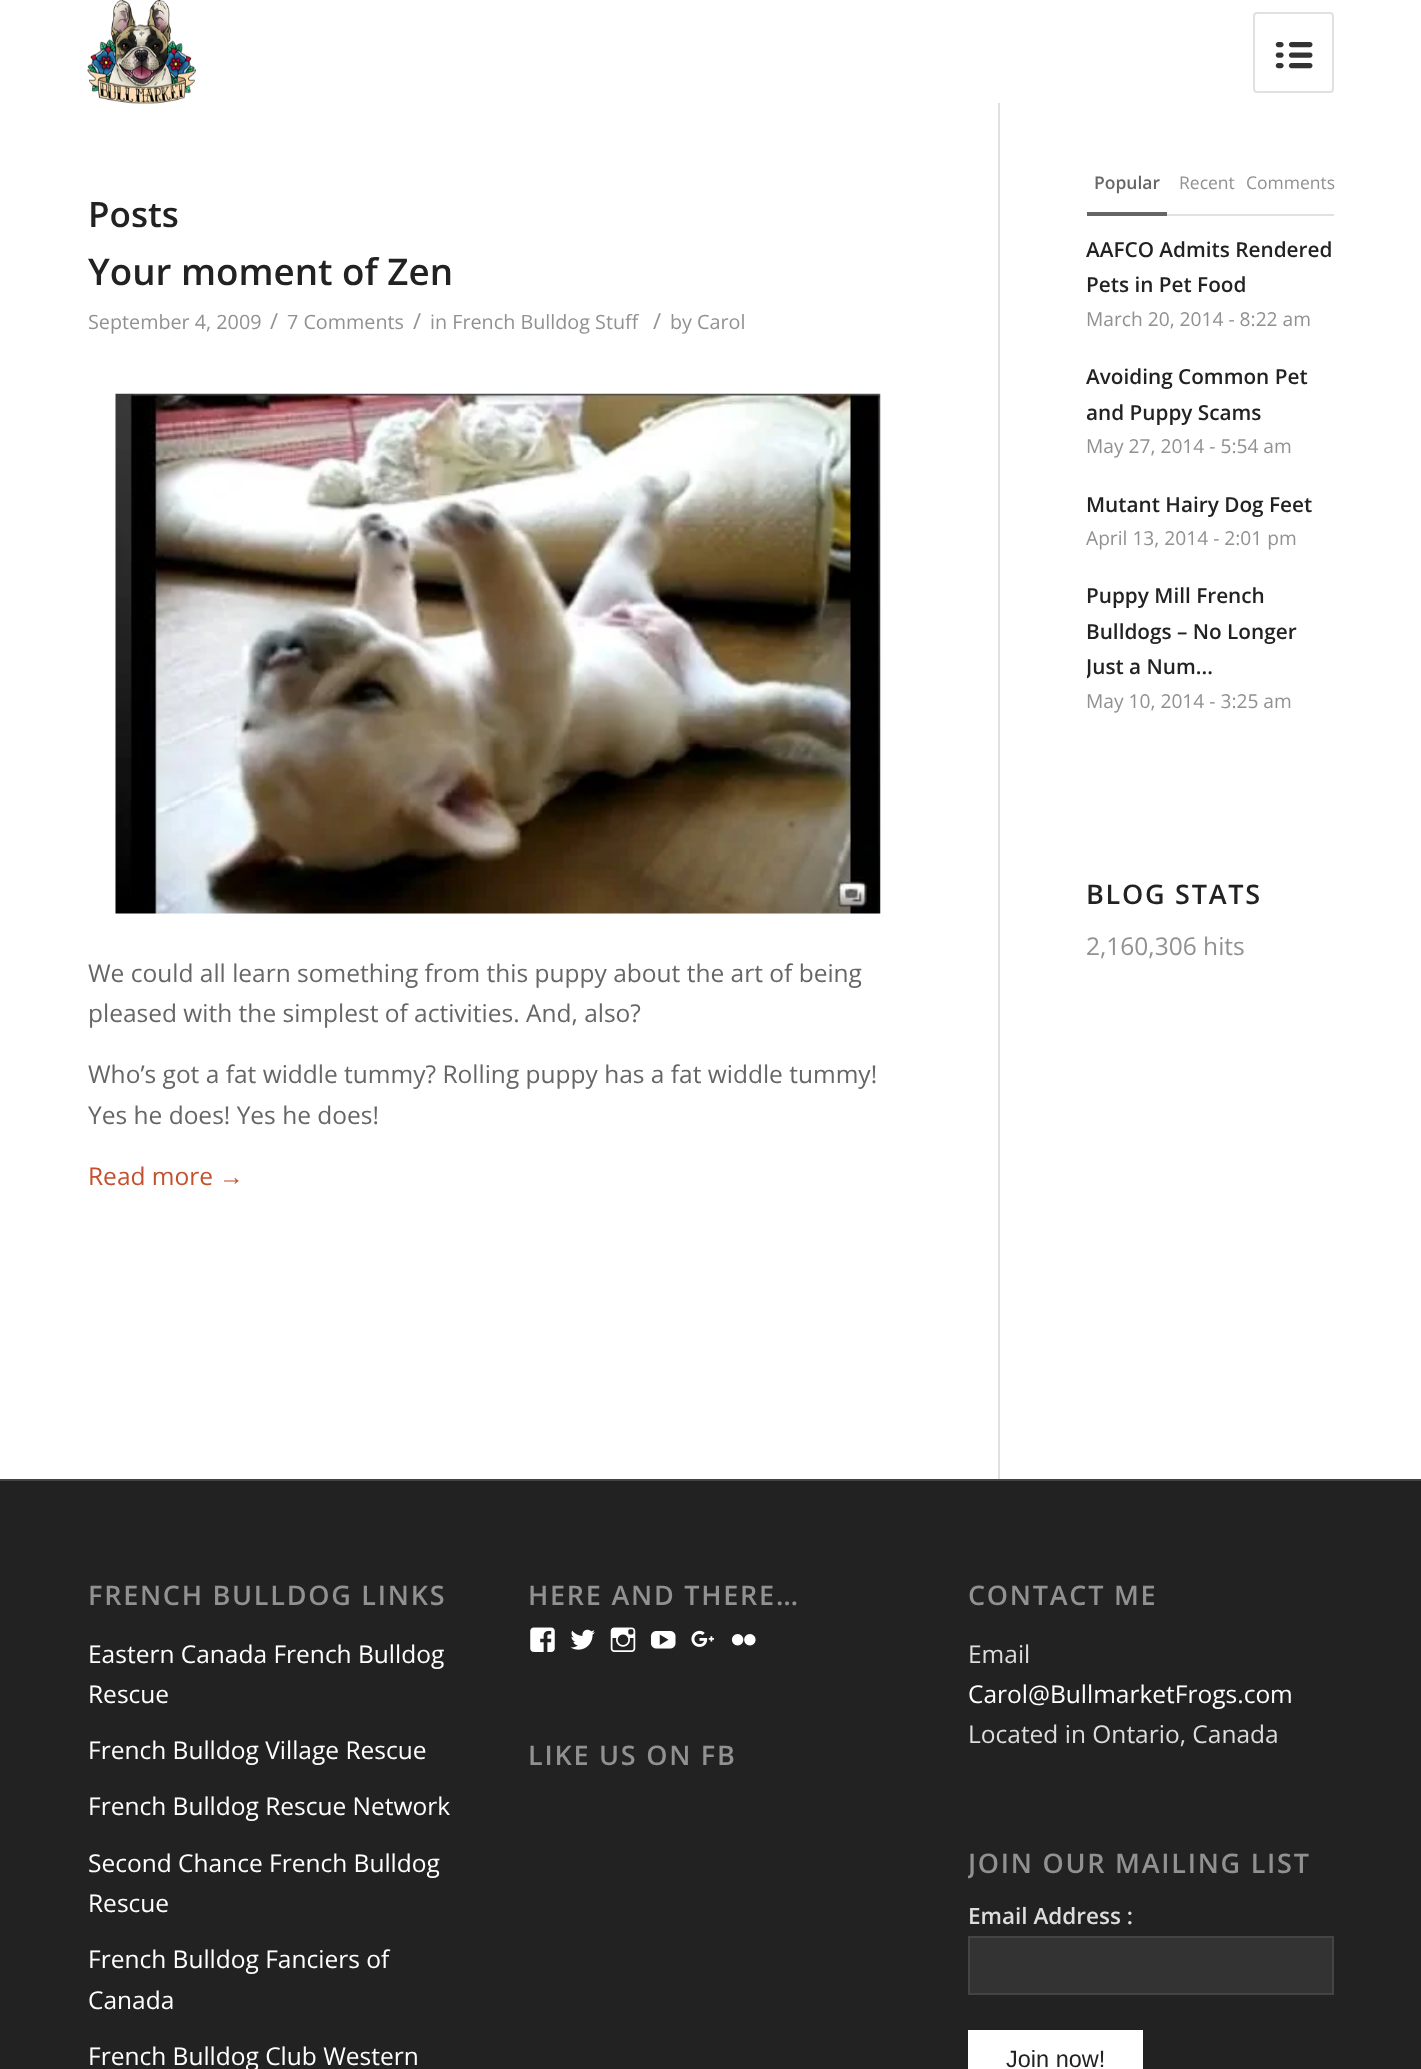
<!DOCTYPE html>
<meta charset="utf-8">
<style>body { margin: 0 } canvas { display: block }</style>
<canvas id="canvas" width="1421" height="2069"></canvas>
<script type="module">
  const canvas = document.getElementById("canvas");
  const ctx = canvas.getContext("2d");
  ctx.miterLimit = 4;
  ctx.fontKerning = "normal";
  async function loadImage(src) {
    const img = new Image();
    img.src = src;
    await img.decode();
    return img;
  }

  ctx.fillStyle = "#ffffff";
  ctx.fillRect(0, 0, 1421, 2069);
  ctx.drawImage(await loadImage("img1.png"), 87, 0, 109, 104);
  ctx.beginPath();
  ctx.roundRect(1254, 13, 79, 79, 3);
  ctx.strokeStyle = "#e1e1e1";
  ctx.lineWidth = 2;
  ctx.stroke();
  ctx.drawImage(await loadImage("img2.png"), 1275, 42, 38, 27);
  ctx.fillStyle = "#e1e1e1";
  ctx.fillRect(998, 103, 2, 1376);
  ctx.font = "600 35px Open Sans";
  ctx.fillStyle = "#222222";
  ctx.fillText("Posts", 88, 227);
  ctx.font = "600 36.75px Open Sans";
  ctx.fillText("Your moment of Zen", 88, 285);
  ctx.font = "19.75px Open Sans";
  ctx.fillStyle = "#919191";
  ctx.fillText("September 4, 2009", 88, 329);
  ctx.font = "22px Open Sans";
  ctx.fillText("/", 270, 329);
  ctx.font = "19.75px Open Sans";
  ctx.fillText("7 Comments", 287, 329);
  ctx.font = "22px Open Sans";
  ctx.fillText("/", 413, 329);
  ctx.font = "19.75px Open Sans";
  ctx.fillText("in French Bulldog Stuff", 430, 329);
  ctx.font = "22px Open Sans";
  ctx.fillText("/", 653, 329);
  ctx.font = "19.75px Open Sans";
  ctx.fillText("by Carol", 670, 329);
  ctx.drawImage(await loadImage("img3.png"), 115, 393, 766, 521);
  ctx.font = "24.5px Open Sans";
  ctx.fillStyle = "#666666";
  ctx.fillText("We could all learn something from this puppy about the art of being", 88, 982);
  ctx.fillText("pleased with the simplest of activities. And, also?", 88, 1022);
  ctx.fillText("Who’s got a fat widdle tummy? Rolling puppy has a fat widdle tummy!", 88, 1083);
  ctx.fillText("Yes he does! Yes he does!", 88, 1124);
  ctx.fillStyle = "#c3512f";
  ctx.fillText("Read more", 88, 1185);
  ctx.font = "24.5px Liberation Sans";
  ctx.fillText("→", 219, 1185);
  ctx.fillStyle = "#e1e1e1";
  ctx.fillRect(1167, 214, 167, 2);
  ctx.fillStyle = "#666666";
  ctx.fillRect(1087, 212, 80, 4);
  ctx.font = "600 17.5px Open Sans";
  ctx.fillText("Popular", 1094, 189);
  ctx.font = "17.5px Open Sans";
  ctx.fillStyle = "#919191";
  ctx.fillText("Recent", 1179, 189);
  ctx.fillText("Comments", 1246, 189);
  ctx.font = "600 20.75px Open Sans";
  ctx.fillStyle = "#222222";
  ctx.fillText("AAFCO Admits Rendered", 1086, 257);
  ctx.fillText("Pets in Pet Food", 1086, 292);
  ctx.font = "19.2px Open Sans";
  ctx.fillStyle = "#919191";
  ctx.fillText("March 20, 2014 - 8:22 am", 1086, 326);
  ctx.font = "600 20.75px Open Sans";
  ctx.fillStyle = "#222222";
  ctx.fillText("Avoiding Common Pet", 1086, 384);
  ctx.fillText("and Puppy Scams", 1086, 420);
  ctx.font = "19.2px Open Sans";
  ctx.fillStyle = "#919191";
  ctx.fillText("May 27, 2014 - 5:54 am", 1086, 453);
  ctx.font = "600 20.75px Open Sans";
  ctx.fillStyle = "#222222";
  ctx.fillText("Mutant Hairy Dog Feet", 1086, 512);
  ctx.font = "19.2px Open Sans";
  ctx.fillStyle = "#919191";
  ctx.fillText("April 13, 2014 - 2:01 pm", 1086, 545);
  ctx.font = "600 20.75px Open Sans";
  ctx.fillStyle = "#222222";
  ctx.fillText("Puppy Mill French", 1086, 603);
  ctx.fillText("Bulldogs – No Longer", 1086, 639);
  ctx.save();
  ctx.beginPath();
  ctx.roundRect(1087, 215, 247, 510, 4);
  ctx.clip();
  ctx.fillText("Just a Num...", 1086, 674);
  ctx.restore();
  ctx.font = "19.2px Open Sans";
  ctx.fillStyle = "#919191";
  ctx.fillText("May 10, 2014 - 3:25 am", 1086, 708);
  ctx.letterSpacing = "1.75px";
  ctx.font = "600 27px Open Sans";
  ctx.fillStyle = "#222222";
  ctx.fillText("BLOG STATS", 1086, 904);
  ctx.letterSpacing = "0px";
  ctx.font = "24.5px Open Sans";
  ctx.fillStyle = "#919191";
  ctx.fillText("2,160,306 hits", 1086, 955);
  ctx.fillStyle = "#222222";
  ctx.fillRect(0, 1481, 1421, 588);
  ctx.fillStyle = "#444444";
  ctx.fillRect(0, 1479, 1421, 2);
  ctx.letterSpacing = "1.75px";
  ctx.font = "600 27px Open Sans";
  ctx.fillStyle = "#919191";
  ctx.fillText("FRENCH BULLDOG LINKS", 88, 1605);
  ctx.letterSpacing = "0px";
  ctx.font = "24.5px Open Sans";
  ctx.fillStyle = "#ffffff";
  ctx.fillText("Eastern Canada French Bulldog", 88, 1663);
  ctx.fillText("Rescue", 88, 1703);
  ctx.fillText("French Bulldog Village Rescue", 88, 1759);
  ctx.fillText("French Bulldog Rescue Network", 88, 1815);
  ctx.fillText("Second Chance French Bulldog", 88, 1872);
  ctx.fillText("Rescue", 88, 1912);
  ctx.fillText("French Bulldog Fanciers of", 88, 1968);
  ctx.fillText("Canada", 88, 2009);
  ctx.fillText("French Bulldog Club Western", 88, 2065);
  ctx.letterSpacing = "1.75px";
  ctx.font = "600 27px Open Sans";
  ctx.fillStyle = "#919191";
  ctx.fillText("HERE AND THERE…", 528, 1605);
  ctx.drawImage(await loadImage("img4.png"), 530, 1627, 25, 25);
  ctx.drawImage(await loadImage("img5.png"), 570, 1629, 25, 21);
  ctx.drawImage(await loadImage("img6.png"), 610, 1627, 26, 25);
  ctx.drawImage(await loadImage("img7.png"), 651, 1631, 25, 18);
  ctx.drawImage(await loadImage("img8.png"), 691, 1630, 23, 17);
  ctx.drawImage(await loadImage("img9.png"), 731, 1634, 25, 12);
  ctx.fillText("LIKE US ON FB", 528, 1765);
  ctx.fillText("CONTACT ME", 968, 1605);
  ctx.letterSpacing = "0px";
  ctx.font = "24.5px Open Sans";
  ctx.fillStyle = "#dddddd";
  ctx.fillText("Email", 968, 1663);
  ctx.fillStyle = "#ffffff";
  ctx.fillText("Carol@BullmarketFrogs.com", 968, 1703);
  ctx.fillStyle = "#dddddd";
  ctx.fillText("Located in Ontario, Canada", 968, 1743);
  ctx.save();
  ctx.beginPath();
  ctx.rect(968, 1827, 366, 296);
  ctx.clip();
  ctx.letterSpacing = "1.75px";
  ctx.font = "600 27px Open Sans";
  ctx.fillStyle = "#919191";
  ctx.fillText("JOIN OUR MAILING LIST", 968, 1873);
  ctx.restore();
  ctx.font = "600 22.5px Open Sans";
  ctx.fillText("Email Address :", 968, 1924);
  ctx.fillStyle = "#333333";
  ctx.beginPath();
  ctx.rect(969, 1937, 364, 57);
  ctx.fill();
  ctx.strokeStyle = "#444444";
  ctx.stroke();
  ctx.fillStyle = "#ffffff";
  ctx.fillRect(968, 2030, 175, 39);
  ctx.font = "23.5px Liberation Sans";
  ctx.fillStyle = "#222222";
  ctx.fillText("Join now!", 1006, 2067);
</script>
